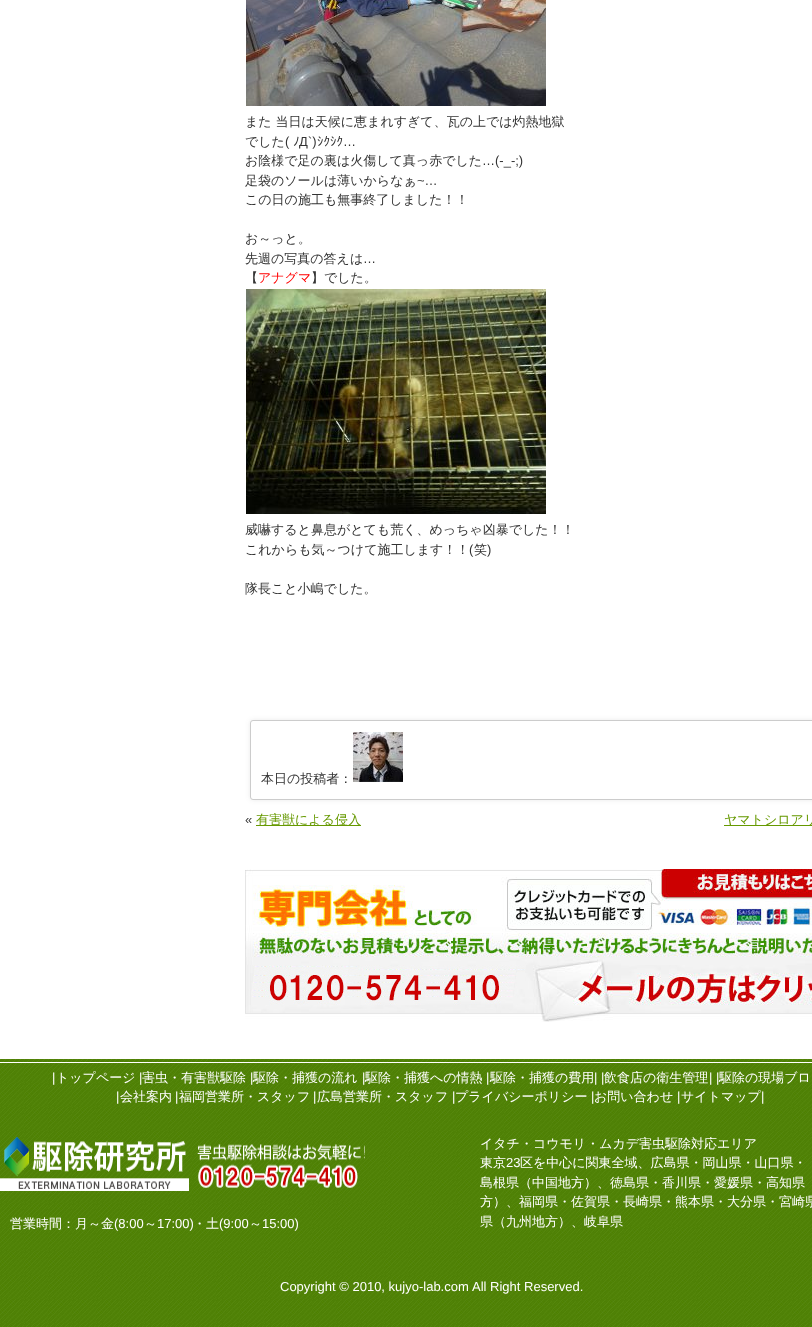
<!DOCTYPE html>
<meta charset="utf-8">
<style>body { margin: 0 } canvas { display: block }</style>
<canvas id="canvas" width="812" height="1327"></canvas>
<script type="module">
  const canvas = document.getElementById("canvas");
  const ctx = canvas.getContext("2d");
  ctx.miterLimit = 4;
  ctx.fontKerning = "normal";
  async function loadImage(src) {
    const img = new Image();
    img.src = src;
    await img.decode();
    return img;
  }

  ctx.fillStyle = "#ffffff";
  ctx.fillRect(0, 0, 812, 1327);
  ctx.drawImage(await loadImage("img1.png"), 246, 0, 300, 106);
  ctx.font = "500 13px WenQuanYi Zen Hei";
  ctx.fillStyle = "#333333";
  ctx.fillText("また 当日は天候に恵まれすぎて、瓦の上では灼熱地獄", 245, 126);
  ctx.fillText("でした", 245, 146);
  ctx.font = "13px Liberation Sans";
  ctx.fillText("(", 285, 146);
  ctx.font = "13px IPAPGothic";
  ctx.fillText("ﾉ", 293, 146);
  ctx.font = "13px Liberation Sans";
  ctx.fillText("Д`)", 299, 146);
  ctx.font = "13px IPAPGothic";
  ctx.fillText("ｼｸｼｸ", 317, 146);
  ctx.font = "13px Liberation Sans";
  ctx.fillText("…", 343, 146);
  ctx.font = "500 13px WenQuanYi Zen Hei";
  ctx.fillText("お陰様で足の裏は火傷して真っ赤でした", 245, 165);
  ctx.font = "13px Liberation Sans";
  ctx.fillText("…(-_-;)", 482, 165);
  ctx.font = "500 13px WenQuanYi Zen Hei";
  ctx.fillText("足袋のソールは薄いからなぁ", 245, 185);
  ctx.font = "13px Liberation Sans";
  ctx.fillText("~…", 417, 185);
  ctx.font = "500 13px WenQuanYi Zen Hei";
  ctx.fillText("この日の施工も無事終了しました！！", 245, 204);
  ctx.fillText("お～っと。", 245, 243);
  ctx.fillText("先週の写真の答えは", 245, 263);
  ctx.font = "13px Liberation Sans";
  ctx.fillText("…", 363, 263);
  ctx.font = "500 13px WenQuanYi Zen Hei";
  ctx.fillText("【", 245, 282);
  ctx.fillStyle = "#ff0000";
  ctx.fillText("アナグマ", 258, 282);
  ctx.fillStyle = "#333333";
  ctx.fillText("】でした。", 311, 282);
  ctx.drawImage(await loadImage("img2.png"), 246, 289, 300, 225);
  ctx.fillText("威嚇すると鼻息がとても荒く、めっちゃ凶暴でした！！", 245, 534);
  ctx.fillText("これからも気～つけて施工します！！", 245, 554);
  ctx.font = "13px Liberation Sans";
  ctx.fillText("(", 469, 554);
  ctx.font = "500 13px WenQuanYi Zen Hei";
  ctx.fillText("笑", 474, 554);
  ctx.font = "13px Liberation Sans";
  ctx.fillText(")", 487, 554);
  ctx.font = "500 13px WenQuanYi Zen Hei";
  ctx.fillText("隊長こと小嶋でした。", 245, 593);
  ctx.fillStyle = "rgba(50, 50, 50, 0.1)";
  ctx.filter = "blur(2.5px)";
  ctx.beginPath();
  ctx.roundRect(250, 720, 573, 80, 3);
  ctx.fill();
  ctx.filter = "none";
  ctx.fillStyle = "#ffffff";
  ctx.beginPath();
  ctx.roundRect(250.5, 720.5, 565, 79, 2.5);
  ctx.fill();
  ctx.strokeStyle = "#cccccc";
  ctx.stroke();
  ctx.fillStyle = "#333333";
  ctx.fillText("本日の投稿者：", 261, 783);
  ctx.drawImage(await loadImage("img3.png"), 353, 732, 50, 50);
  ctx.font = "13px Liberation Sans";
  ctx.fillText("«", 245, 824);
  ctx.fillStyle = "#669900";
  ctx.fillRect(256, 825, 105, 1);
  ctx.font = "500 13px WenQuanYi Zen Hei";
  ctx.fillText("有害獣による侵入", 256, 824);
  ctx.fillRect(724, 825, 88, 1);
  ctx.fillText("ヤマトシロアリ", 724, 824);
  ctx.drawImage(await loadImage("img4.png"), 245, 869, 567, 153);
  ctx.drawImage(await loadImage("img5.png"), 0, 1059, 812, 268);
  ctx.fillStyle = "#ffffff";
  ctx.fillRect(0, 1062, 812, 1);
  ctx.font = "13px Liberation Sans";
  ctx.fillText("|", 52, 1082);
  ctx.font = "500 13px WenQuanYi Zen Hei";
  ctx.fillText("トップページ", 56, 1082);
  ctx.font = "13px Liberation Sans";
  ctx.fillText("|", 139, 1082);
  ctx.font = "500 13px WenQuanYi Zen Hei";
  ctx.fillText("害虫・有害獣駆除", 142, 1082);
  ctx.font = "13px Liberation Sans";
  ctx.fillText("|", 250, 1082);
  ctx.font = "500 13px WenQuanYi Zen Hei";
  ctx.fillText("駆除・捕獲の流れ", 253, 1082);
  ctx.font = "13px Liberation Sans";
  ctx.fillText("|", 362, 1082);
  ctx.font = "500 13px WenQuanYi Zen Hei";
  ctx.fillText("駆除・捕獲への情熱", 365, 1082);
  ctx.font = "13px Liberation Sans";
  ctx.fillText("|", 486, 1082);
  ctx.font = "500 13px WenQuanYi Zen Hei";
  ctx.fillText("駆除・捕獲の費用", 490, 1082);
  ctx.font = "13px Liberation Sans";
  ctx.fillText("| |", 594, 1082);
  ctx.font = "500 13px WenQuanYi Zen Hei";
  ctx.fillText("飲食店の衛生管理", 604, 1082);
  ctx.font = "13px Liberation Sans";
  ctx.fillText("| |", 709, 1082);
  ctx.font = "500 13px WenQuanYi Zen Hei";
  ctx.fillText("駆除の現場ブロ", 719, 1082);
  ctx.font = "13px Liberation Sans";
  ctx.fillText("|", 116, 1101);
  ctx.font = "500 13px WenQuanYi Zen Hei";
  ctx.fillText("会社案内", 120, 1101);
  ctx.font = "13px Liberation Sans";
  ctx.fillText("|", 175, 1101);
  ctx.font = "500 13px WenQuanYi Zen Hei";
  ctx.fillText("福岡営業所・スタッフ", 179, 1101);
  ctx.font = "13px Liberation Sans";
  ctx.fillText("|", 313, 1101);
  ctx.font = "500 13px WenQuanYi Zen Hei";
  ctx.fillText("広島営業所・スタッフ", 317, 1101);
  ctx.font = "13px Liberation Sans";
  ctx.fillText("|", 452, 1101);
  ctx.font = "500 13px WenQuanYi Zen Hei";
  ctx.fillText("プライバシーポリシー", 455, 1101);
  ctx.font = "13px Liberation Sans";
  ctx.fillText("|", 591, 1101);
  ctx.font = "500 13px WenQuanYi Zen Hei";
  ctx.fillText("お問い合わせ", 594, 1101);
  ctx.font = "13px Liberation Sans";
  ctx.fillText("|", 677, 1101);
  ctx.font = "500 13px WenQuanYi Zen Hei";
  ctx.fillText("サイトマップ", 681, 1101);
  ctx.font = "13px Liberation Sans";
  ctx.fillText("|", 761, 1101);
  ctx.drawImage(await loadImage("img6.png"), 0, 1137, 365, 54);
  ctx.font = "500 13px WenQuanYi Zen Hei";
  ctx.fillText("イタチ・コウモリ・ムカデ害虫駆除対応エリア", 480, 1148);
  ctx.fillText("東京", 480, 1167);
  ctx.font = "13px Liberation Sans";
  ctx.fillText("23", 506, 1167);
  ctx.font = "500 13px WenQuanYi Zen Hei";
  ctx.fillText("区を中心に関東全域、広島県・岡山県・山口県・", 520, 1167);
  ctx.fillText("島根県（中国地方）、徳島県・香川県・愛媛県・高知県", 480, 1187);
  ctx.fillText("方）、福岡県・佐賀県・長崎県・熊本県・大分県・宮崎県", 480, 1206);
  ctx.fillText("県（九州地方）、岐阜県", 480, 1226);
  ctx.fillText("営業時間：月～金", 10, 1228);
  ctx.font = "13px Liberation Sans";
  ctx.fillText("(8:00", 114, 1228);
  ctx.font = "500 13px WenQuanYi Zen Hei";
  ctx.fillText("～", 144, 1228);
  ctx.font = "13px Liberation Sans";
  ctx.fillText("17:00)", 157, 1228);
  ctx.font = "500 13px WenQuanYi Zen Hei";
  ctx.fillText("・土", 193, 1228);
  ctx.font = "13px Liberation Sans";
  ctx.fillText("(9:00", 219, 1228);
  ctx.font = "500 13px WenQuanYi Zen Hei";
  ctx.fillText("～", 249, 1228);
  ctx.font = "13px Liberation Sans";
  ctx.fillText("15:00)", 262, 1228);
  ctx.fillText("Copyright © 2010, kujyo-lab.com", 280, 1291);
  ctx.fillText("All Right Reserved.", 472, 1291);
</script>
